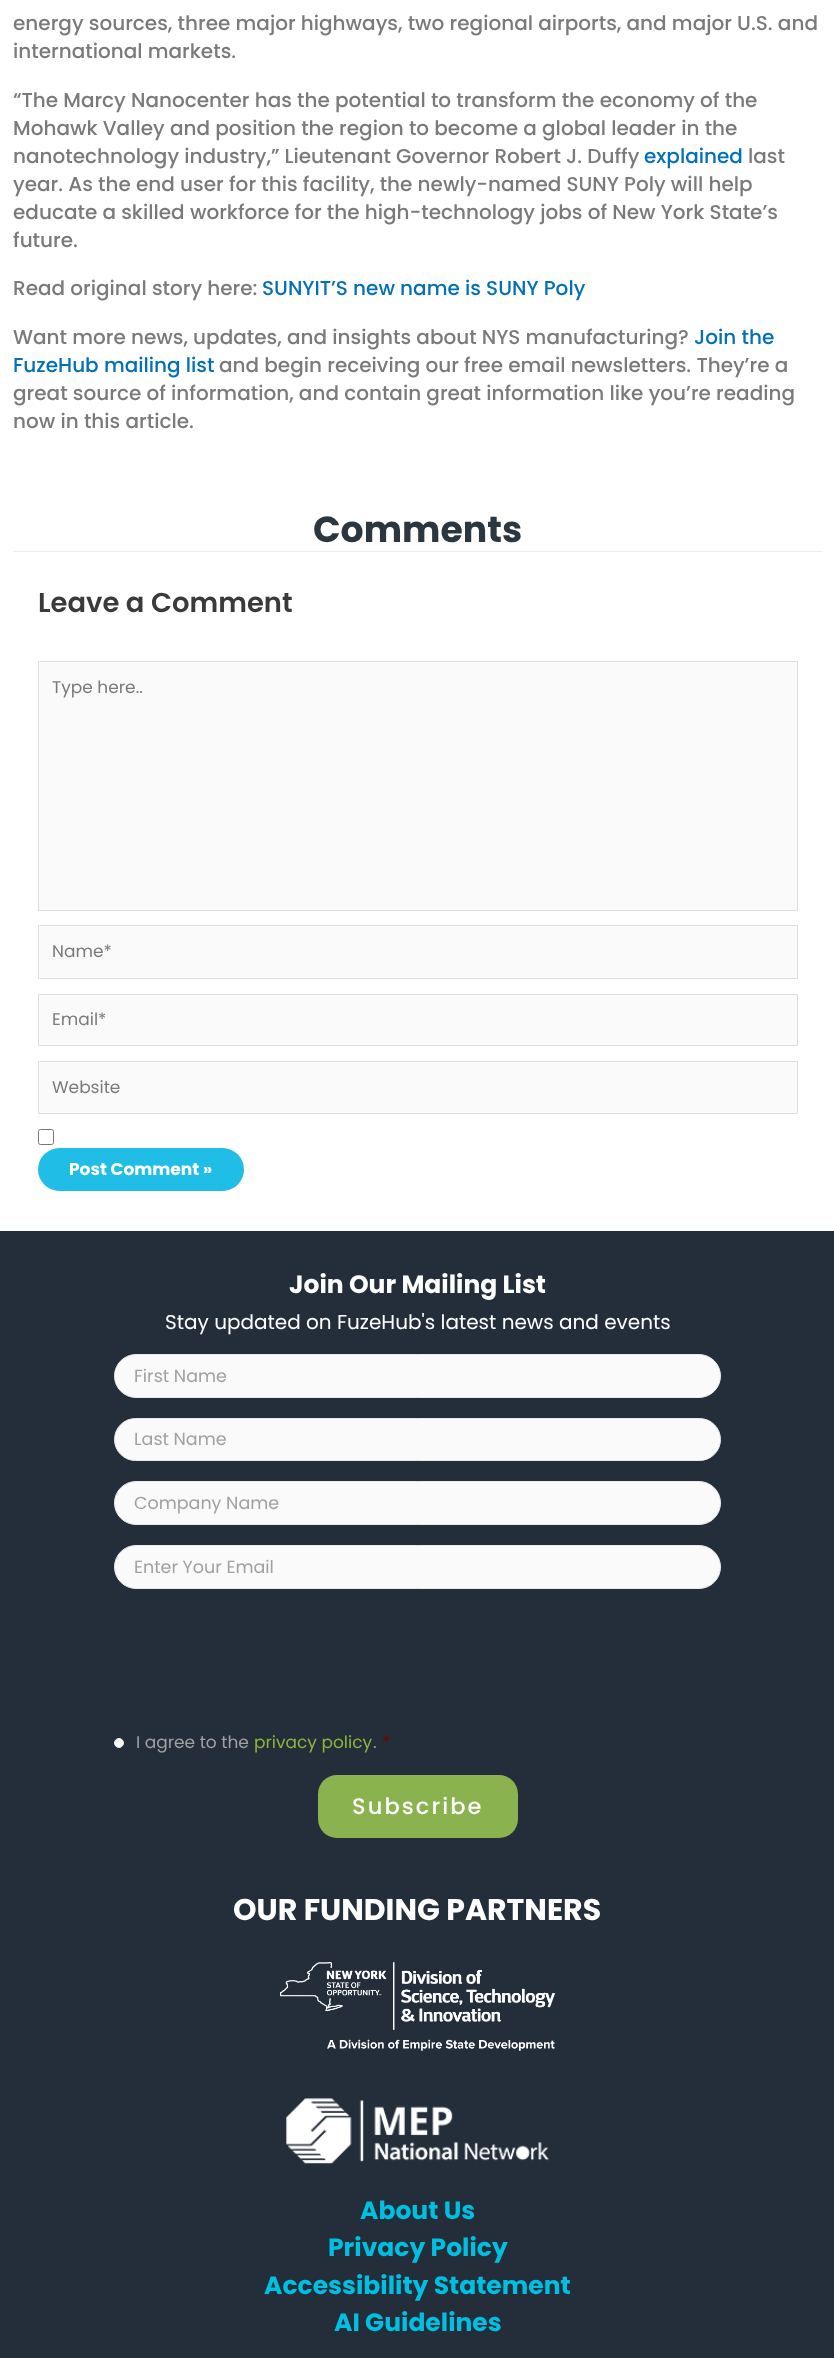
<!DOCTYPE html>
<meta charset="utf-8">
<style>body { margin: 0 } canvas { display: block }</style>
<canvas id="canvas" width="834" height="2358"></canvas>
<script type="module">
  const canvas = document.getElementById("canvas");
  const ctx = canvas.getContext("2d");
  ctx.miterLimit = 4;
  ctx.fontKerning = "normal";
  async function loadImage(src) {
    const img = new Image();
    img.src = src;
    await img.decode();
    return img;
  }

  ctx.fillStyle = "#ffffff";
  ctx.fillRect(0, 0, 834, 2358);
  ctx.font = "500 20px Poppins";
  ctx.fillStyle = "#7a7a7a";
  ctx.fillText("energy sources, three major highways, two regional airports, and major U.S. and", 13, 30);
  ctx.fillText("international markets.", 13, 58);
  ctx.fillText("“The Marcy Nanocenter has the potential to transform the economy of the", 13, 107);
  ctx.fillText("Mohawk Valley and position the region to become a global leader in the", 13, 135);
  ctx.fillText("nanotechnology industry,” Lieutenant Governor Robert J. Duffy", 13, 163);
  ctx.fillStyle = "#0170b9";
  ctx.fillText("explained", 644, 163);
  ctx.fillStyle = "#7a7a7a";
  ctx.fillText("last", 748, 163);
  ctx.fillText("year. As the end user for this facility, the newly-named SUNY Poly will help", 13, 191);
  ctx.fillText("educate a skilled workforce for the high-technology jobs of New York State’s", 13, 219);
  ctx.fillText("future.", 13, 247);
  ctx.fillText("Read original story here:", 13, 295);
  ctx.fillStyle = "#0170b9";
  ctx.fillText("SUNYIT’S new name is SUNY Poly", 262, 295);
  ctx.fillStyle = "#7a7a7a";
  ctx.fillText("Want more news, updates, and insights about NYS manufacturing?", 13, 344);
  ctx.fillStyle = "#0170b9";
  ctx.fillText("Join the", 694, 344);
  ctx.fillText("FuzeHub mailing list", 13, 372);
  ctx.fillStyle = "#7a7a7a";
  ctx.fillText("and begin receiving our free email newsletters. They’re a", 219, 372);
  ctx.fillText("great source of information, and contain great information like you’re reading", 13, 400);
  ctx.fillText("now in this article.", 13, 428);
  ctx.font = "bold 36.25px Poppins";
  ctx.fillStyle = "#2c363f";
  ctx.fillText("Comments", 313, 542);
  ctx.fillStyle = "#eeeeee";
  ctx.fillRect(13, 551, 810, 1);
  ctx.font = "600 27.4px Poppins";
  ctx.fillStyle = "#3a3a3a";
  ctx.fillText("Leave a Comment", 38, 612);
  ctx.fillStyle = "#fafafa";
  ctx.beginPath();
  ctx.rect(38.5, 661.5, 759, 249);
  ctx.fill();
  ctx.strokeStyle = "#dddddd";
  ctx.stroke();
  ctx.font = "17px Poppins";
  ctx.fillStyle = "#7a7a7a";
  ctx.fillText("Type here..", 52, 693);
  ctx.fillStyle = "#fafafa";
  ctx.beginPath();
  ctx.rect(38.5, 925.5, 759, 53);
  ctx.fill();
  ctx.stroke();
  ctx.fillStyle = "#7a7a7a";
  ctx.fillText("Name*", 52, 957);
  ctx.fillStyle = "#fafafa";
  ctx.beginPath();
  ctx.rect(38.5, 994.5, 759, 51);
  ctx.fill();
  ctx.stroke();
  ctx.fillStyle = "#7a7a7a";
  ctx.fillText("Email*", 52, 1025);
  ctx.fillStyle = "#fafafa";
  ctx.beginPath();
  ctx.rect(38.5, 1061.5, 759, 52);
  ctx.fill();
  ctx.stroke();
  ctx.fillStyle = "#7a7a7a";
  ctx.fillText("Website", 52, 1093);
  ctx.beginPath();
  ctx.roundRect(38.5, 1129.5, 15, 15, 2);
  ctx.strokeStyle = "#767676";
  ctx.stroke();
  ctx.fillStyle = "#20bde6";
  ctx.beginPath();
  ctx.roundRect(38, 1148, 206, 43, 21.5);
  ctx.fill();
  ctx.font = "bold 17px Poppins";
  ctx.fillStyle = "#ffffff";
  ctx.fillText("Post Comment »", 69, 1175);
  ctx.fillStyle = "#242e3a";
  ctx.fillRect(0, 1231, 834, 1127);
  ctx.font = "bold 25px Poppins";
  ctx.fillStyle = "#ffffff";
  ctx.fillText("Join Our Mailing List", 289, 1293);
  ctx.font = "20px Poppins";
  ctx.fillText("Stay updated on FuzeHub's latest news and events", 165, 1329);
  ctx.fillStyle = "#fafafa";
  ctx.beginPath();
  ctx.roundRect(114.5, 1354.5, 606, 43, 21.5);
  ctx.fill();
  ctx.strokeStyle = "#eaeaea";
  ctx.stroke();
  ctx.font = "17.5px Poppins";
  ctx.fillStyle = "#a1a1a1";
  ctx.fillText("First Name", 134, 1382);
  ctx.fillStyle = "#fafafa";
  ctx.beginPath();
  ctx.roundRect(114.5, 1418.5, 606, 42, 21);
  ctx.fill();
  ctx.stroke();
  ctx.fillStyle = "#a1a1a1";
  ctx.fillText("Last Name", 134, 1445);
  ctx.fillStyle = "#fafafa";
  ctx.beginPath();
  ctx.roundRect(114.5, 1481.5, 606, 43, 21.5);
  ctx.fill();
  ctx.stroke();
  ctx.fillStyle = "#a1a1a1";
  ctx.fillText("Company Name", 134, 1509);
  ctx.fillStyle = "#fafafa";
  ctx.beginPath();
  ctx.roundRect(114.5, 1545.5, 606, 43, 21.5);
  ctx.fill();
  ctx.stroke();
  ctx.fillStyle = "#a1a1a1";
  ctx.fillText("Enter Your Email", 134, 1573);
  ctx.fillStyle = "#fafafa";
  ctx.beginPath();
  ctx.arc(119, 1743, 4.5, 0, Math.PI * 2);
  ctx.fill();
  ctx.stroke();
  ctx.font = "17px Poppins";
  ctx.fillStyle = "#a1a1a1";
  ctx.fillText("I agree to the", 136, 1748);
  ctx.fillStyle = "#8db53e";
  ctx.fillText("privacy policy", 254, 1748);
  ctx.fillStyle = "#a1a1a1";
  ctx.fillText(".", 373, 1748);
  ctx.fillStyle = "#790000";
  ctx.fillText("*", 382, 1748);
  ctx.fillStyle = "#8ab24e";
  ctx.beginPath();
  ctx.roundRect(318, 1775, 200, 63, 19);
  ctx.fill();
  ctx.letterSpacing = "2.1px";
  ctx.font = "500 22.5px Poppins";
  ctx.fillStyle = "#ffffff";
  ctx.fillText("Subscribe", 352, 1814);
  ctx.letterSpacing = "0px";
  ctx.font = "bold 30px Poppins";
  ctx.fillText("OUR FUNDING PARTNERS", 233, 1920);
  ctx.drawImage(await loadImage("img1.png"), 280, 1962, 275, 89);
  ctx.drawImage(await loadImage("img2.png"), 286, 2098, 263, 66);
  ctx.font = "bold 25px Poppins";
  ctx.fillStyle = "#00bfe1";
  ctx.fillText("About Us", 360, 2219);
  ctx.fillText("Privacy Policy", 328, 2256);
  ctx.fillText("Accessibility Statement", 264, 2294);
  ctx.fillText("AI Guidelines", 334, 2331);
</script>
